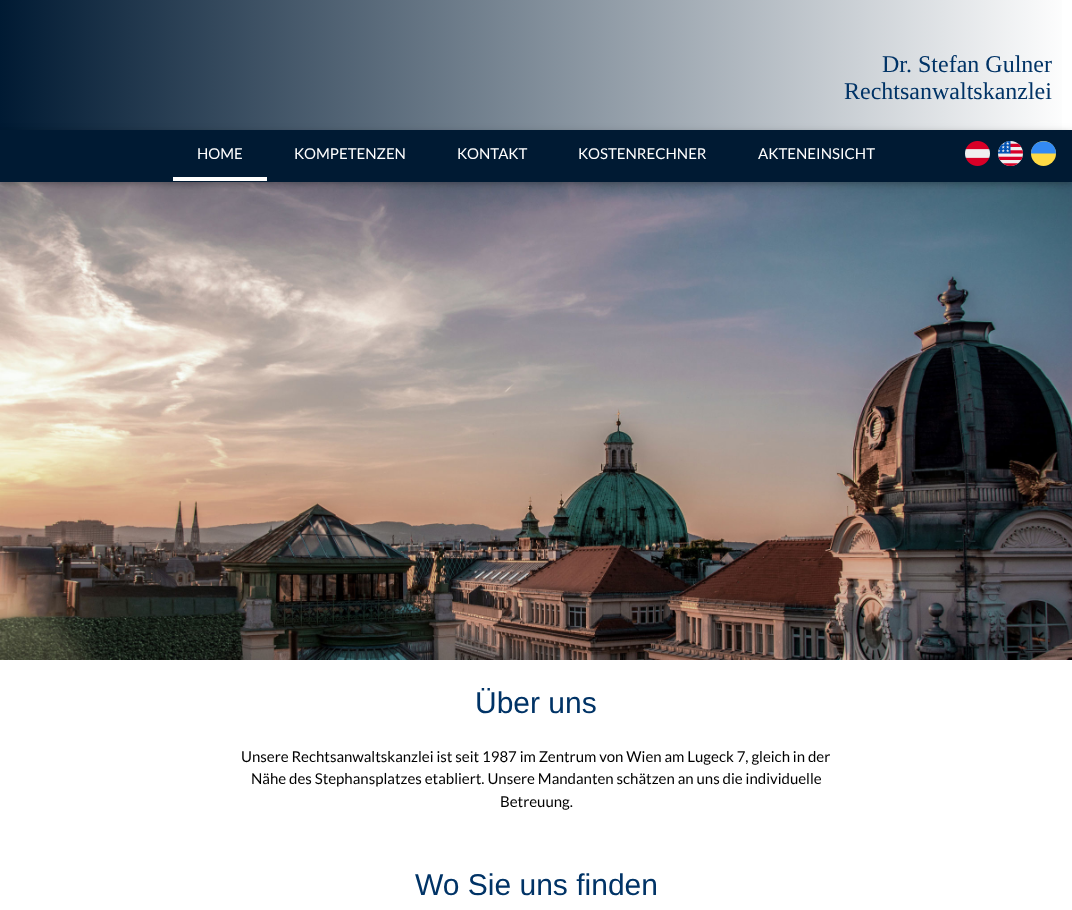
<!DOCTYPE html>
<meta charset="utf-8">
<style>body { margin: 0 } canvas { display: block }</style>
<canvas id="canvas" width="1072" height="910"></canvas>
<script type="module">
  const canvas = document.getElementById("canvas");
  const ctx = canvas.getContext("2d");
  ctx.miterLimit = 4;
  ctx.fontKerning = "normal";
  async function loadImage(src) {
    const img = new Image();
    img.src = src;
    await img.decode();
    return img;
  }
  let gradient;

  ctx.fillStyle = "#ffffff";
  ctx.fillRect(0, 0, 1072, 910);
  gradient = ctx.createLinearGradient(1072, 89, 0, 88);
  gradient.addColorStop(0, "#ffffff");
  gradient.addColorStop(1, "#001a33");
  ctx.fillStyle = gradient;
  ctx.fillRect(0, 0, 1062, 130);
  ctx.font = "24px Liberation Serif";
  ctx.fillStyle = "#003366";
  ctx.fillText("Dr. Stefan Gulner", 882, 72);
  ctx.fillText("Rechtsanwaltskanzlei", 844, 99);
  ctx.drawImage(await loadImage("img3.png"), 0, 182, 1072, 478);
  ctx.fillStyle = "rgba(0, 0, 0, 0.12)";
  ctx.filter = "blur(5px)";
  ctx.beginPath();
  ctx.rect(0, 132, 1072, 52);
  ctx.fill();
  ctx.filter = "none";
  ctx.fillStyle = "rgba(0, 0, 0, 0.16)";
  ctx.filter = "blur(2.5px)";
  ctx.beginPath();
  ctx.rect(0, 132, 1072, 52);
  ctx.fill();
  ctx.filter = "none";
  ctx.fillStyle = "#001a33";
  ctx.fillRect(0, 130, 1072, 52);
  ctx.fillStyle = "#ffffff";
  ctx.fillRect(173, 177, 94, 4);
  ctx.font = "15px Lato";
  ctx.fillText("HOME", 197, 159);
  ctx.fillText("KOMPETENZEN", 294, 159);
  ctx.fillText("KONTAKT", 457, 159);
  ctx.fillText("KOSTENRECHNER", 578, 159);
  ctx.fillText("AKTENEINSICHT", 758, 159);
  ctx.drawImage(await loadImage("img1.png"), 965, 141, 25, 25);
  ctx.drawImage(await loadImage("img2.png"), 998, 141, 25, 25);
  ctx.fillStyle = "#ffda44";
  ctx.beginPath();
  ctx.arc(1043.5, 153.5, 12.5, 0, Math.PI * 2);
  ctx.fill();
  ctx.fillStyle = "#338af3";
  ctx.beginPath();
  ctx.moveTo(1031, 153.5);
  ctx.bezierCurveTo(1031, 137, 1056, 137, 1056, 153.5);
  ctx.fill();
  ctx.font = "30px Liberation Sans";
  ctx.fillStyle = "#003366";
  ctx.fillText("Über uns", 475, 713);
  ctx.font = "15px Lato";
  ctx.fillStyle = "#000000";
  ctx.fillText("Unsere Rechtsanwaltskanzlei ist seit 1987 im Zentrum von Wien am Lugeck 7, gleich in der", 241, 762);
  ctx.fillText("Nähe des Stephansplatzes etabliert. Unsere Mandanten schätzen an uns die individuelle", 251, 784);
  ctx.fillText("Betreuung.", 500, 807);
  ctx.font = "30px Liberation Sans";
  ctx.fillStyle = "#003366";
  ctx.fillText("Wo Sie uns finden", 415, 895);
</script>
